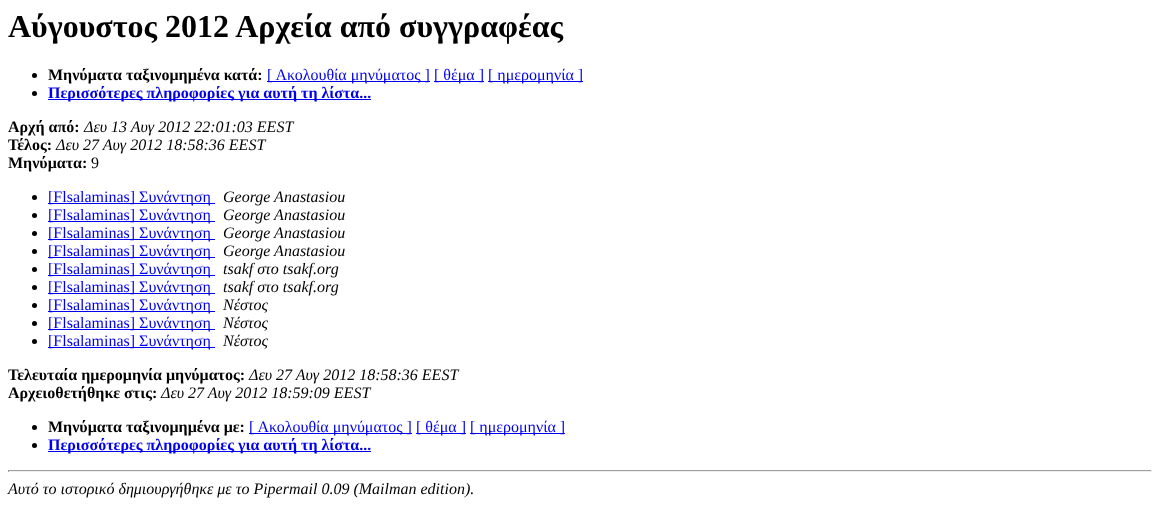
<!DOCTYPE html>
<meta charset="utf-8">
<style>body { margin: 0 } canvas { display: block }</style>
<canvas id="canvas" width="1160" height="523"></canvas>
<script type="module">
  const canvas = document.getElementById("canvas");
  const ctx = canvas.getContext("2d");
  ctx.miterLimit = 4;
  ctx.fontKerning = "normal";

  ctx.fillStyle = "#ffffff";
  ctx.fillRect(0, 0, 1160, 523);
  ctx.font = "bold 32px Liberation Serif";
  ctx.fillStyle = "#000000";
  ctx.fillText("Αύγουστος 2012 Αρχεία από συγγραφέας", 8, 37);
  ctx.beginPath();
  ctx.arc(34.5, 75.5, 2.5, 0, Math.PI * 2);
  ctx.fill();
  ctx.font = "bold 16px Liberation Serif";
  ctx.fillText("Μηνύματα ταξινομημένα κατά:", 48, 80);
  ctx.fillStyle = "#0000ee";
  ctx.fillRect(267, 81, 163, 1);
  ctx.font = "16px Liberation Serif";
  ctx.fillText("[ Ακολουθία μηνύματος ]", 267, 80);
  ctx.fillRect(434, 81, 50, 1);
  ctx.fillText("[ θέμα ]", 434, 80);
  ctx.fillRect(488, 81, 95, 1);
  ctx.fillText("[ ημερομηνία ]", 488, 80);
  ctx.fillStyle = "#000000";
  ctx.beginPath();
  ctx.arc(34.5, 93.5, 2.5, 0, Math.PI * 2);
  ctx.fill();
  ctx.fillStyle = "#0000ee";
  ctx.fillRect(48, 99, 323, 1);
  ctx.font = "bold 16px Liberation Serif";
  ctx.fillText("Περισσότερες πληροφορίες για αυτή τη λίστα...", 48, 98);
  ctx.fillStyle = "#000000";
  ctx.fillText("Αρχή από:", 8, 132);
  ctx.font = "italic 16px Liberation Serif";
  ctx.fillText("Δευ 13 Αυγ 2012 22:01:03 EEST", 84, 132);
  ctx.font = "bold 16px Liberation Serif";
  ctx.fillText("Τέλος:", 8, 150);
  ctx.font = "italic 16px Liberation Serif";
  ctx.fillText("Δευ 27 Αυγ 2012 18:58:36 EEST", 56, 150);
  ctx.font = "bold 16px Liberation Serif";
  ctx.fillText("Μηνύματα:", 8, 168);
  ctx.font = "16px Liberation Serif";
  ctx.fillText("9", 91, 168);
  ctx.beginPath();
  ctx.arc(34.5, 197.5, 2.5, 0, Math.PI * 2);
  ctx.fill();
  ctx.fillStyle = "#0000ee";
  ctx.fillRect(48, 203, 167, 1);
  ctx.fillText("[Flsalaminas] Συνάντηση", 48, 202);
  ctx.font = "italic 16px Liberation Serif";
  ctx.fillStyle = "#000000";
  ctx.fillText("George Anastasiou", 223, 202);
  ctx.beginPath();
  ctx.arc(34.5, 215.5, 2.5, 0, Math.PI * 2);
  ctx.fill();
  ctx.fillStyle = "#0000ee";
  ctx.fillRect(48, 221, 167, 1);
  ctx.font = "16px Liberation Serif";
  ctx.fillText("[Flsalaminas] Συνάντηση", 48, 220);
  ctx.font = "italic 16px Liberation Serif";
  ctx.fillStyle = "#000000";
  ctx.fillText("George Anastasiou", 223, 220);
  ctx.beginPath();
  ctx.arc(34.5, 233.5, 2.5, 0, Math.PI * 2);
  ctx.fill();
  ctx.fillStyle = "#0000ee";
  ctx.fillRect(48, 239, 167, 1);
  ctx.font = "16px Liberation Serif";
  ctx.fillText("[Flsalaminas] Συνάντηση", 48, 238);
  ctx.font = "italic 16px Liberation Serif";
  ctx.fillStyle = "#000000";
  ctx.fillText("George Anastasiou", 223, 238);
  ctx.beginPath();
  ctx.arc(34.5, 251.5, 2.5, 0, Math.PI * 2);
  ctx.fill();
  ctx.fillStyle = "#0000ee";
  ctx.fillRect(48, 257, 167, 1);
  ctx.font = "16px Liberation Serif";
  ctx.fillText("[Flsalaminas] Συνάντηση", 48, 256);
  ctx.font = "italic 16px Liberation Serif";
  ctx.fillStyle = "#000000";
  ctx.fillText("George Anastasiou", 223, 256);
  ctx.beginPath();
  ctx.arc(34.5, 269.5, 2.5, 0, Math.PI * 2);
  ctx.fill();
  ctx.fillStyle = "#0000ee";
  ctx.fillRect(48, 275, 167, 1);
  ctx.font = "16px Liberation Serif";
  ctx.fillText("[Flsalaminas] Συνάντηση", 48, 274);
  ctx.font = "italic 16px Liberation Serif";
  ctx.fillStyle = "#000000";
  ctx.fillText("tsakf στο tsakf.org", 223, 274);
  ctx.beginPath();
  ctx.arc(34.5, 287.5, 2.5, 0, Math.PI * 2);
  ctx.fill();
  ctx.fillStyle = "#0000ee";
  ctx.fillRect(48, 293, 167, 1);
  ctx.font = "16px Liberation Serif";
  ctx.fillText("[Flsalaminas] Συνάντηση", 48, 292);
  ctx.font = "italic 16px Liberation Serif";
  ctx.fillStyle = "#000000";
  ctx.fillText("tsakf στο tsakf.org", 223, 292);
  ctx.beginPath();
  ctx.arc(34.5, 305.5, 2.5, 0, Math.PI * 2);
  ctx.fill();
  ctx.fillStyle = "#0000ee";
  ctx.fillRect(48, 311, 167, 1);
  ctx.font = "16px Liberation Serif";
  ctx.fillText("[Flsalaminas] Συνάντηση", 48, 310);
  ctx.font = "italic 16px Liberation Serif";
  ctx.fillStyle = "#000000";
  ctx.fillText("Νέστος", 223, 310);
  ctx.beginPath();
  ctx.arc(34.5, 323.5, 2.5, 0, Math.PI * 2);
  ctx.fill();
  ctx.fillStyle = "#0000ee";
  ctx.fillRect(48, 329, 167, 1);
  ctx.font = "16px Liberation Serif";
  ctx.fillText("[Flsalaminas] Συνάντηση", 48, 328);
  ctx.font = "italic 16px Liberation Serif";
  ctx.fillStyle = "#000000";
  ctx.fillText("Νέστος", 223, 328);
  ctx.beginPath();
  ctx.arc(34.5, 341.5, 2.5, 0, Math.PI * 2);
  ctx.fill();
  ctx.fillStyle = "#0000ee";
  ctx.fillRect(48, 347, 167, 1);
  ctx.font = "16px Liberation Serif";
  ctx.fillText("[Flsalaminas] Συνάντηση", 48, 346);
  ctx.font = "italic 16px Liberation Serif";
  ctx.fillStyle = "#000000";
  ctx.fillText("Νέστος", 223, 346);
  ctx.font = "bold 16px Liberation Serif";
  ctx.fillText("Τελευταία ημερομηνία μηνύματος:", 8, 380);
  ctx.font = "italic 16px Liberation Serif";
  ctx.fillText("Δευ 27 Αυγ 2012 18:58:36 EEST", 249, 380);
  ctx.font = "bold 16px Liberation Serif";
  ctx.fillText("Αρχειοθετήθηκε στις:", 8, 398);
  ctx.font = "italic 16px Liberation Serif";
  ctx.fillText("Δευ 27 Αυγ 2012 18:59:09 EEST", 161, 398);
  ctx.beginPath();
  ctx.arc(34.5, 427.5, 2.5, 0, Math.PI * 2);
  ctx.fill();
  ctx.font = "bold 16px Liberation Serif";
  ctx.fillText("Μηνύματα ταξινομημένα με:", 48, 432);
  ctx.fillStyle = "#0000ee";
  ctx.fillRect(249, 433, 163, 1);
  ctx.font = "16px Liberation Serif";
  ctx.fillText("[ Ακολουθία μηνύματος ]", 249, 432);
  ctx.fillRect(416, 433, 50, 1);
  ctx.fillText("[ θέμα ]", 416, 432);
  ctx.fillRect(470, 433, 95, 1);
  ctx.fillText("[ ημερομηνία ]", 470, 432);
  ctx.fillStyle = "#000000";
  ctx.beginPath();
  ctx.arc(34.5, 445.5, 2.5, 0, Math.PI * 2);
  ctx.fill();
  ctx.fillStyle = "#0000ee";
  ctx.fillRect(48, 451, 323, 1);
  ctx.font = "bold 16px Liberation Serif";
  ctx.fillText("Περισσότερες πληροφορίες για αυτή τη λίστα...", 48, 450);
  ctx.fillStyle = "#9f9f9f";
  ctx.fillRect(8, 470, 1144, 1);
  ctx.fillStyle = "#eeeeee";
  ctx.fillRect(1151, 470, 1, 2);
  ctx.fillRect(8, 471, 1144, 1);
  ctx.fillStyle = "#9f9f9f";
  ctx.fillRect(8, 470, 1, 2);
  ctx.font = "italic 16px Liberation Serif";
  ctx.fillStyle = "#000000";
  ctx.fillText("Αυτό το ιστορικό δημιουργήθηκε με το Pipermail 0.09 (Mailman edition).", 8, 494);
</script>
